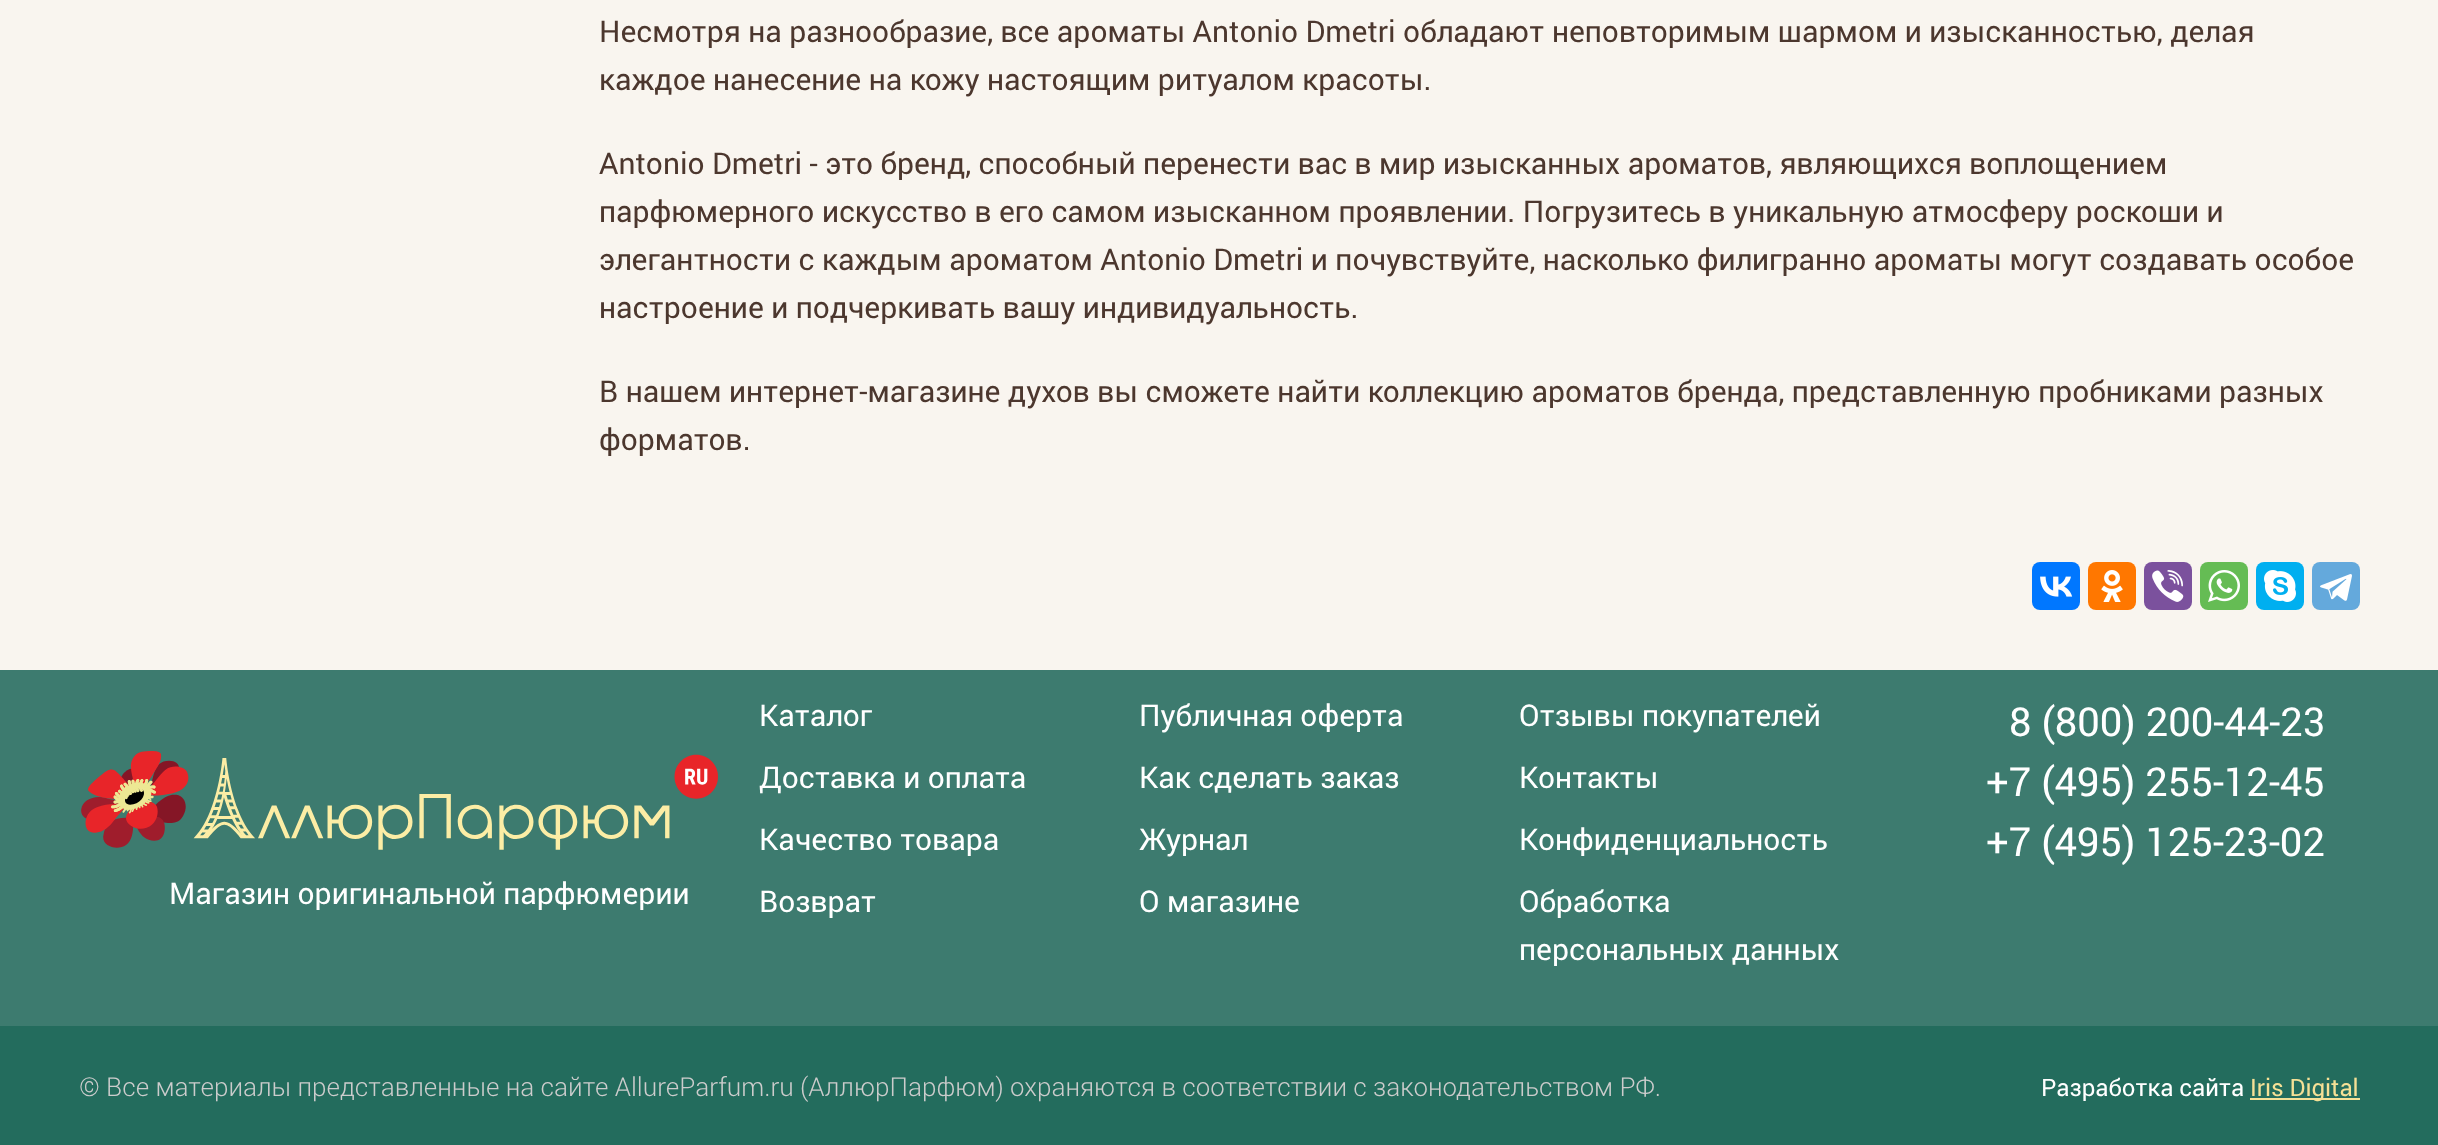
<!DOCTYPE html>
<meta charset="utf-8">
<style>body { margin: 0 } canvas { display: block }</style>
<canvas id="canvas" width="2438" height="1145"></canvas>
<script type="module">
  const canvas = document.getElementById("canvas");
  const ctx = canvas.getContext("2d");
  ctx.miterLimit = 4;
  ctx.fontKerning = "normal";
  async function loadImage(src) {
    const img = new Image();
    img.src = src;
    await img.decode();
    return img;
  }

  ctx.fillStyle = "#f9f5ef";
  ctx.fillRect(0, 0, 2438, 1145);
  ctx.font = "30px Roboto";
  ctx.fillStyle = "#4c372e";
  ctx.fillText("Несмотря на разнообразие, все ароматы Antonio Dmetri обладают неповторимым шармом и изысканностью, делая", 599, 42);
  ctx.fillText("каждое нанесение на кожу настоящим ритуалом красоты.", 599, 90);
  ctx.fillText("Antonio Dmetri - это бренд, способный перенести вас в мир изысканных ароматов, являющихся воплощением", 599, 174);
  ctx.fillText("парфюмерного искусство в его самом изысканном проявлении. Погрузитесь в уникальную атмосферу роскоши и", 599, 222);
  ctx.fillText("элегантности с каждым ароматом Antonio Dmetri и почувствуйте, насколько филигранно ароматы могут создавать особое", 599, 270);
  ctx.fillText("настроение и подчеркивать вашу индивидуальность.", 599, 318);
  ctx.fillText("В нашем интернет-магазине духов вы сможете найти коллекцию ароматов бренда, представленную пробниками разных", 599, 402);
  ctx.fillText("форматов.", 599, 450);
  ctx.fillStyle = "#0077ff";
  ctx.beginPath();
  ctx.roundRect(2032, 562, 48, 48, 8);
  ctx.fill();
  ctx.drawImage(await loadImage("img1.png"), 2040, 576, 33, 21);
  ctx.fillStyle = "#ff7700";
  ctx.beginPath();
  ctx.roundRect(2088, 562, 48, 48, 8);
  ctx.fill();
  ctx.drawImage(await loadImage("img2.png"), 2101, 570, 22, 32);
  ctx.fillStyle = "#7b519d";
  ctx.beginPath();
  ctx.roundRect(2144, 562, 48, 48, 8);
  ctx.fill();
  ctx.drawImage(await loadImage("img3.png"), 2152, 570, 32, 32);
  ctx.fillStyle = "#65bc54";
  ctx.beginPath();
  ctx.roundRect(2200, 562, 48, 48, 8);
  ctx.fill();
  ctx.drawImage(await loadImage("img4.png"), 2208, 570, 32, 32);
  ctx.fillStyle = "#00aff0";
  ctx.beginPath();
  ctx.roundRect(2256, 562, 48, 48, 8);
  ctx.fill();
  ctx.drawImage(await loadImage("img5.png"), 2264, 570, 32, 32);
  ctx.fillStyle = "#64a9dc";
  ctx.beginPath();
  ctx.roundRect(2312, 562, 48, 48, 8);
  ctx.fill();
  ctx.drawImage(await loadImage("img6.png"), 2320, 574, 32, 27);
  ctx.fillStyle = "#3d7b6f";
  ctx.fillRect(0, 670, 2438, 356);
  ctx.fillStyle = "#ffffff";
  ctx.fillText("Каталог", 759, 726);
  ctx.fillText("Доставка и оплата", 759, 788);
  ctx.fillText("Качество товара", 759, 850);
  ctx.fillText("Возврат", 759, 912);
  ctx.fillText("Публичная оферта", 1139, 726);
  ctx.fillText("Как сделать заказ", 1139, 788);
  ctx.fillText("Журнал", 1139, 850);
  ctx.fillText("О магазине", 1139, 912);
  ctx.fillText("Отзывы покупателей", 1519, 726);
  ctx.fillText("Контакты", 1519, 788);
  ctx.fillText("Конфиденциальность", 1519, 850);
  ctx.fillText("Обработка", 1519, 912);
  ctx.fillText("персональных данных", 1519, 960);
  ctx.font = "40px Roboto";
  ctx.fillText("8 (800) 200-44-23", 2009, 736);
  ctx.fillText("+7 (495) 255-12-45", 1986, 796);
  ctx.fillText("+7 (495) 125-23-02", 1986, 856);
  ctx.drawImage(await loadImage("img7.png"), 81, 751, 637, 99);
  ctx.font = "30px Roboto";
  ctx.fillText("Магазин оригинальной парфюмерии", 169, 904);
  ctx.fillStyle = "#236c5d";
  ctx.fillRect(0, 1026, 2438, 119);
  ctx.font = "300 26px Roboto";
  ctx.fillStyle = "#cccccc";
  ctx.fillText("© Все материалы представленные на сайте AllureParfum.ru (АллюрПарфюм) охраняются в соответствии с законодательством РФ.", 79, 1096);
  ctx.font = "24px Roboto";
  ctx.fillStyle = "#ffffff";
  ctx.fillText("Разработка сайта", 2041, 1096);
  ctx.fillStyle = "#f5e096";
  ctx.fillRect(2250, 1098, 110, 2);
  ctx.fillText("Iris Digital", 2250, 1096);
</script>
